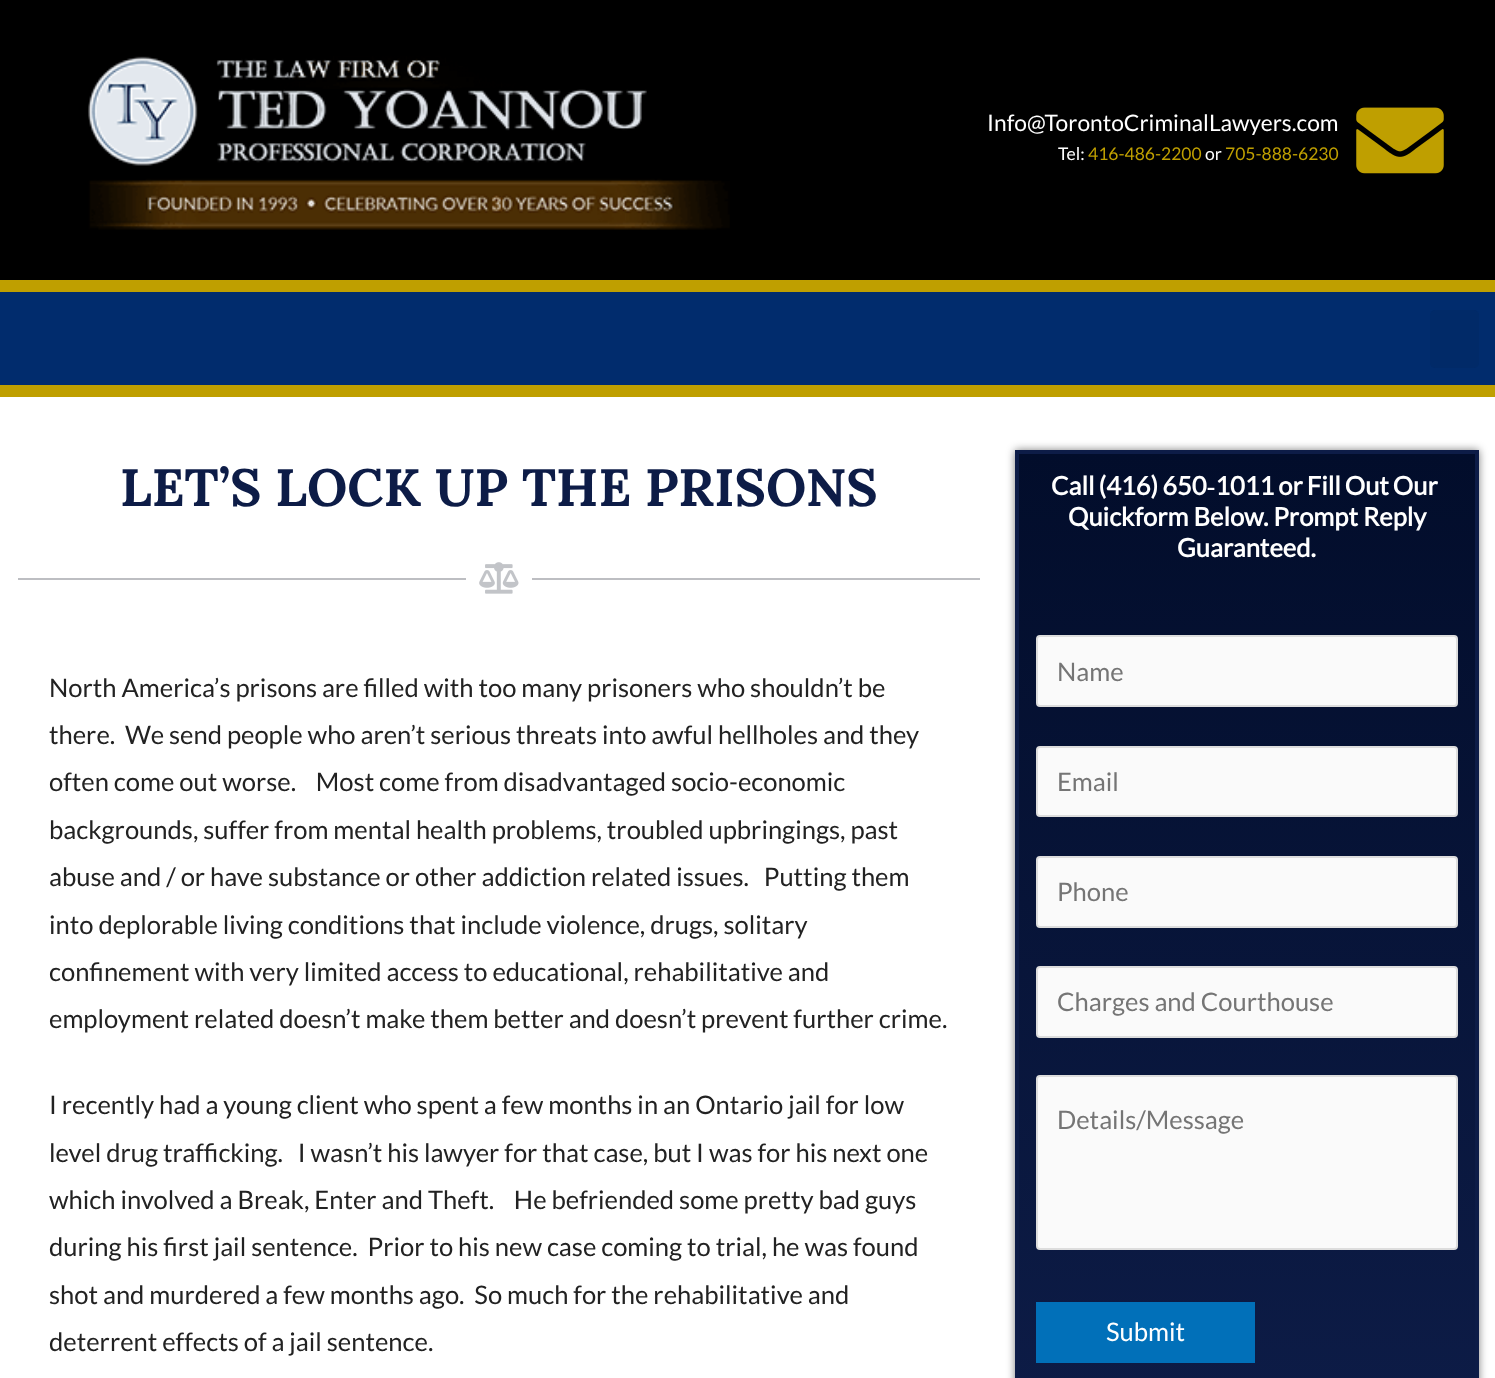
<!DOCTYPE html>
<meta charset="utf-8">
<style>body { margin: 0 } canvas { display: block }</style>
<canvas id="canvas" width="1495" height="1378"></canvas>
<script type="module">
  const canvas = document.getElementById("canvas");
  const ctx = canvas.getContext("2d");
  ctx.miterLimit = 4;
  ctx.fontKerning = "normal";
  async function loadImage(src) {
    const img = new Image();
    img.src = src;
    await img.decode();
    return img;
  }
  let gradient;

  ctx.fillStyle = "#ffffff";
  ctx.fillRect(0, 0, 1495, 1378);
  ctx.fillStyle = "#000000";
  ctx.fillRect(0, 0, 1495, 280);
  ctx.drawImage(await loadImage("img1.png"), 88, 56, 642, 174);
  ctx.font = "22.75px Lato";
  ctx.fillStyle = "#ffffff";
  ctx.fillText("Info@TorontoCriminalLawyers.com", 987, 131);
  ctx.font = "17.5px Lato";
  ctx.fillText("Tel:", 1058, 160);
  ctx.fillStyle = "#bf9f00";
  ctx.fillText("416-486-2200", 1088, 160);
  ctx.fillStyle = "#ffffff";
  ctx.fillText("or", 1205, 160);
  ctx.fillStyle = "#bf9f00";
  ctx.fillText("705-888-6230", 1225, 160);
  ctx.drawImage(await loadImage("img2.png"), 1356, 107, 88, 67);
  ctx.fillStyle = "#012c6d";
  ctx.fillRect(0, 292, 1495, 93);
  ctx.fillStyle = "#bf9f00";
  ctx.fillRect(0, 280, 1495, 12);
  ctx.fillRect(0, 385, 1495, 12);
  ctx.fillStyle = "#012a68";
  ctx.beginPath();
  ctx.roundRect(1430, 310, 49, 58, 5);
  ctx.fill();
  ctx.font = "bold 52.5px Lora";
  ctx.fillStyle = "#0d1c47";
  ctx.fillText("LET’S LOCK UP THE PRISONS", 120, 506);
  ctx.fillStyle = "#bdbec2";
  ctx.fillRect(18, 578, 448, 2);
  ctx.drawImage(await loadImage("img3.png"), 479, 562, 40, 32);
  ctx.fillRect(532, 578, 448, 2);
  ctx.font = "25.55px Lato";
  ctx.fillStyle = "#222222";
  ctx.fillText("North America’s prisons are filled with too many prisoners who shouldn’t be", 49, 697);
  ctx.fillText("there.  We send people who aren’t serious threats into awful hellholes and they", 49, 744);
  ctx.fillText("often come out worse.    Most come from disadvantaged socio-economic", 49, 791);
  ctx.fillText("backgrounds, suffer from mental health problems, troubled upbringings, past", 49, 839);
  ctx.fillText("abuse and / or have substance or other addiction related issues.   Putting them", 49, 886);
  ctx.fillText("into deplorable living conditions that include violence, drugs, solitary", 49, 934);
  ctx.fillText("confinement with very limited access to educational, rehabilitative and", 49, 981);
  ctx.fillText("employment related doesn’t make them better and doesn’t prevent further crime.", 49, 1028);
  ctx.fillText("I recently had a young client who spent a few months in an Ontario jail for low", 49, 1114);
  ctx.fillText("level drug trafficking.   I wasn’t his lawyer for that case, but I was for his next one", 49, 1162);
  ctx.fillText("which involved a Break, Enter and Theft.    He befriended some pretty bad guys", 49, 1209);
  ctx.fillText("during his first jail sentence.  Prior to his new case coming to trial, he was found", 49, 1256);
  ctx.fillText("shot and murdered a few months ago.  So much for the rehabilitative and", 49, 1304);
  ctx.fillText("deterrent effects of a jail sentence.", 49, 1351);
  ctx.fillStyle = "rgba(0, 0, 0, 0.5)";
  ctx.filter = "blur(4.5px)";
  ctx.beginPath();
  ctx.rect(1015, 450, 464, 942);
  ctx.fill();
  ctx.filter = "none";
  gradient = ctx.createLinearGradient(1247, 453, 1247, 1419);
  gradient.addColorStop(0, "#020d2b");
  gradient.addColorStop(1, "#0d1c47");
  ctx.fillStyle = gradient;
  ctx.fillRect(1019, 454, 456, 924);
  ctx.strokeStyle = "#0d1c47";
  ctx.lineWidth = 4;
  ctx.strokeRect(1017, 452, 460, 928);
  ctx.wordSpacing = "-1px";
  ctx.font = "bold 25.55px Lato";
  ctx.fillStyle = "#ffffff";
  ctx.fillText("Call (416) 650‑1011 or Fill Out Our", 1051, 495);
  ctx.wordSpacing = "0px";
  ctx.fillText("Quickform Below. Prompt Reply", 1068, 526);
  ctx.fillText("Guaranteed.", 1177, 557);
  ctx.fillStyle = "#fafafa";
  ctx.beginPath();
  ctx.roundRect(1037, 636, 420, 70, 3);
  ctx.fill();
  ctx.strokeStyle = "#dddddd";
  ctx.lineWidth = 2;
  ctx.stroke();
  ctx.font = "25.55px Lato";
  ctx.fillStyle = "#757575";
  ctx.fillText("Name", 1057, 681);
  ctx.fillStyle = "#fafafa";
  ctx.beginPath();
  ctx.roundRect(1037, 747, 420, 69, 3);
  ctx.fill();
  ctx.stroke();
  ctx.fillStyle = "#757575";
  ctx.fillText("Email", 1057, 791);
  ctx.fillStyle = "#fafafa";
  ctx.beginPath();
  ctx.roundRect(1037, 857, 420, 70, 3);
  ctx.fill();
  ctx.stroke();
  ctx.fillStyle = "#757575";
  ctx.fillText("Phone", 1057, 901);
  ctx.fillStyle = "#fafafa";
  ctx.beginPath();
  ctx.roundRect(1037, 967, 420, 70, 3);
  ctx.fill();
  ctx.stroke();
  ctx.fillStyle = "#757575";
  ctx.fillText("Charges and Courthouse", 1057, 1011);
  ctx.fillStyle = "#fafafa";
  ctx.beginPath();
  ctx.roundRect(1037, 1076, 420, 173, 3);
  ctx.fill();
  ctx.stroke();
  ctx.fillStyle = "#757575";
  ctx.fillText("Details/Message", 1057, 1129);
  ctx.fillStyle = "#0170b9";
  ctx.fillRect(1036, 1302, 219, 61);
  ctx.fillStyle = "#ffffff";
  ctx.fillText("Submit", 1106, 1341);
</script>
